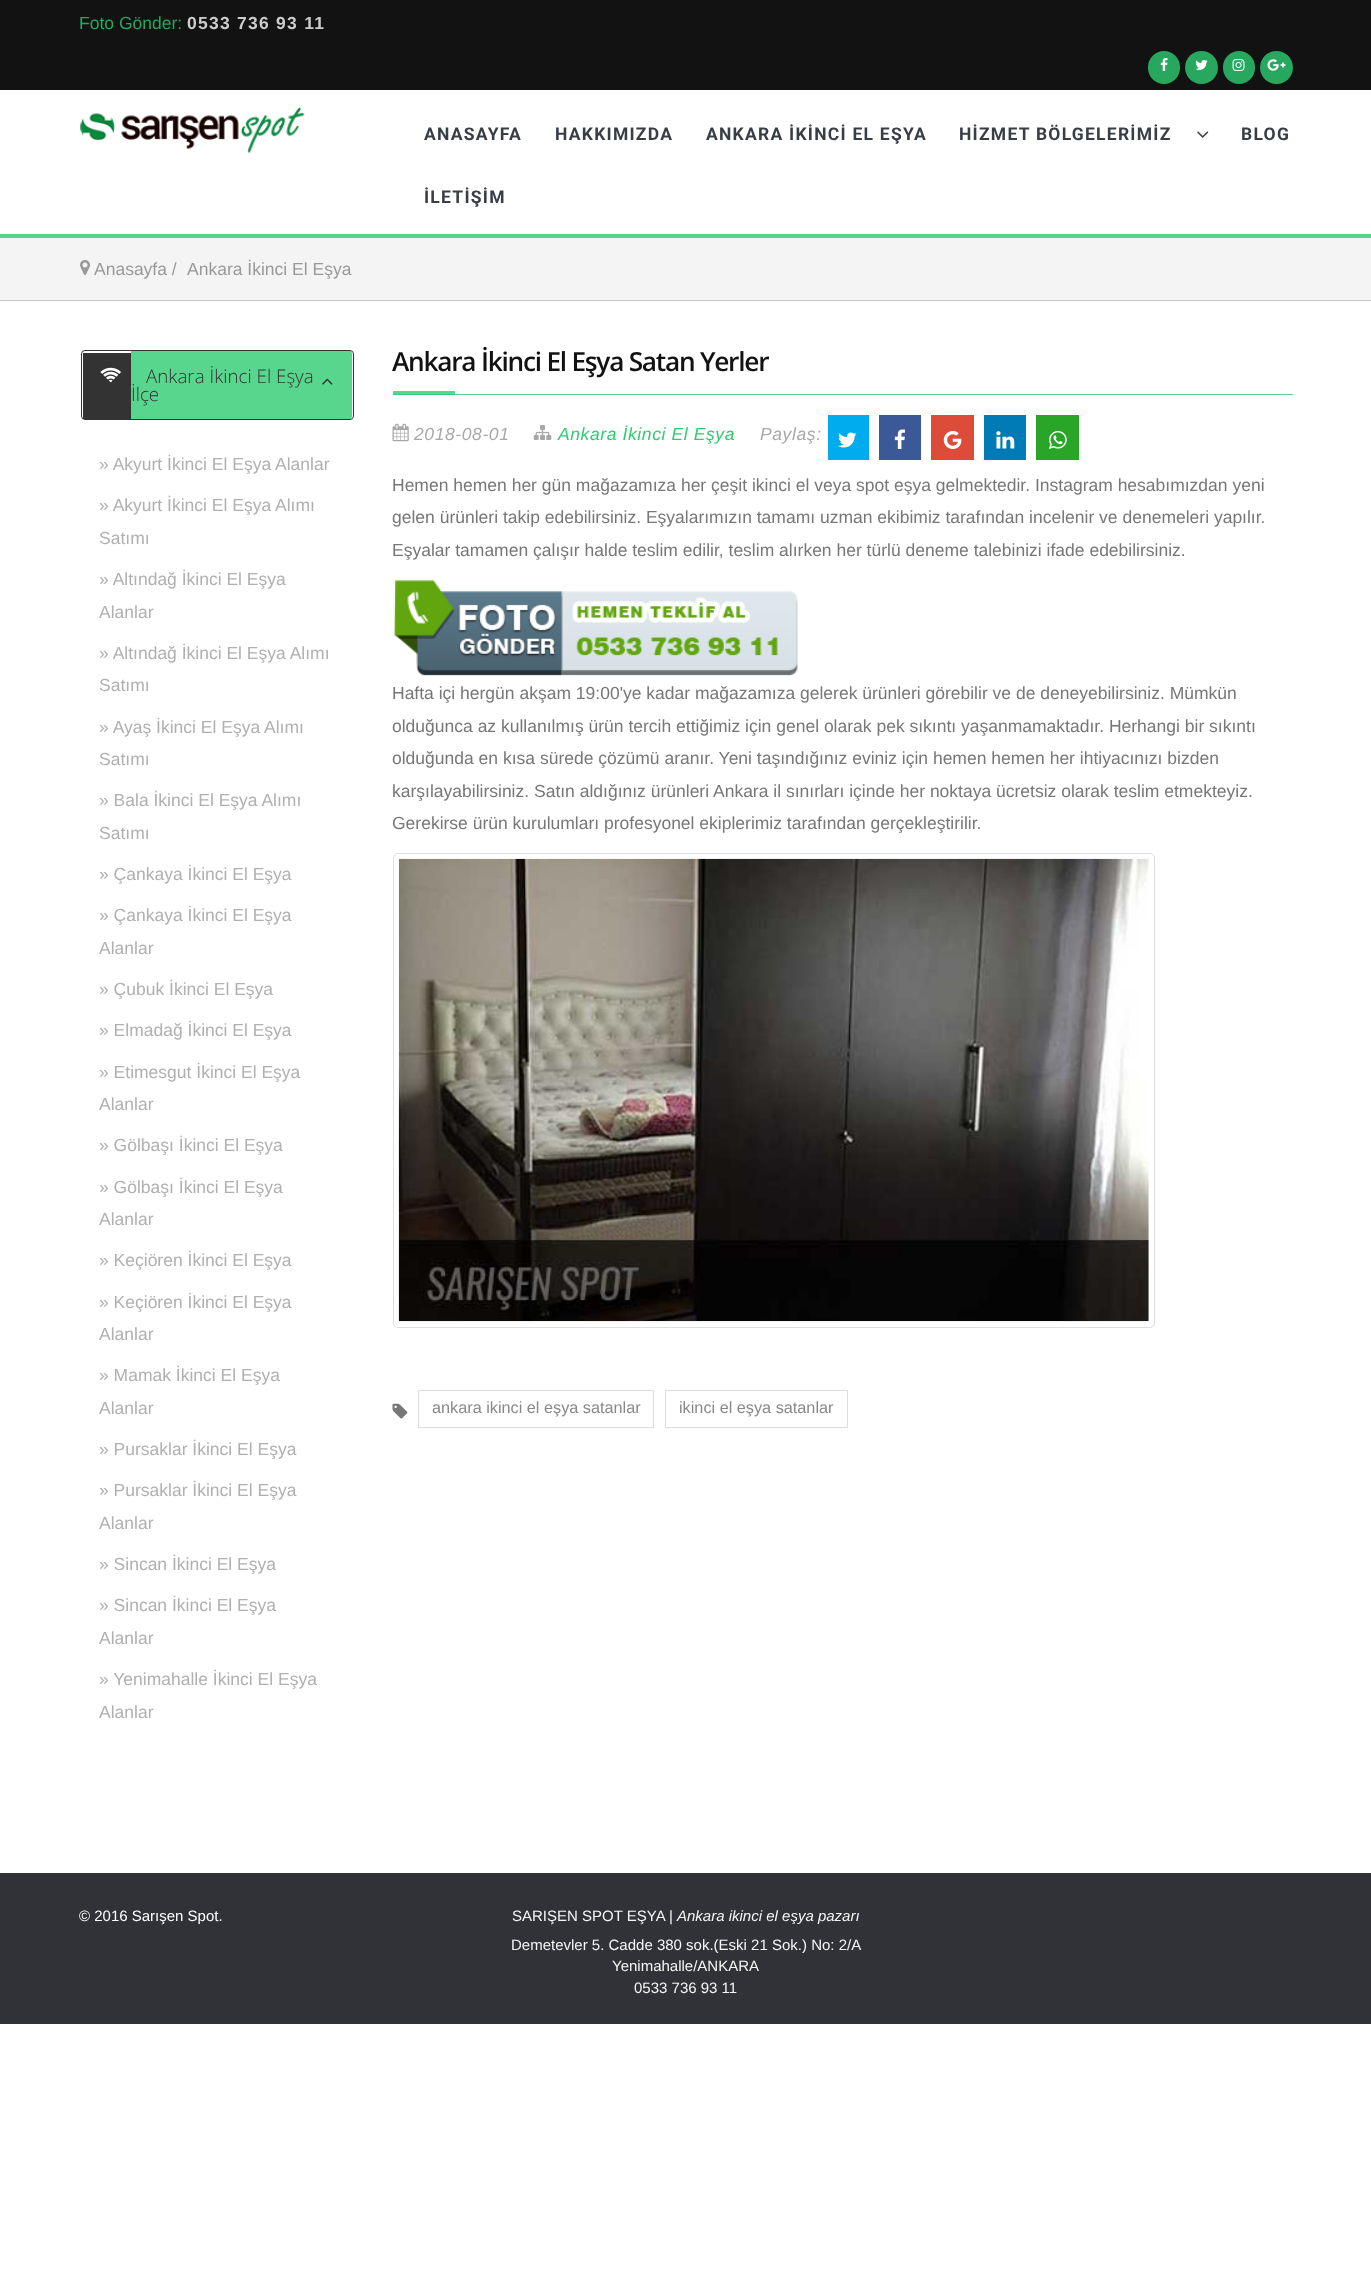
<!DOCTYPE html>
<meta charset="utf-8">
<style>body { margin: 0 } canvas { display: block }</style>
<canvas id="canvas" width="1371" height="2290"></canvas>
<script type="module">
  const canvas = document.getElementById("canvas");
  const ctx = canvas.getContext("2d");
  ctx.miterLimit = 4;
  ctx.fontKerning = "normal";
  async function loadImage(src) {
    const img = new Image();
    img.src = src;
    await img.decode();
    return img;
  }

  ctx.fillStyle = "#ffffff";
  ctx.fillRect(0, 0, 1371, 2290);
  ctx.fillStyle = "#58d68d";
  ctx.fillRect(393, 391, 62, 3);
  ctx.fillStyle = "#121212";
  ctx.fillRect(0, 0, 1371, 90);
  ctx.font = "17.5px Liberation Sans";
  ctx.fillStyle = "#28a75e";
  ctx.fillText("Foto Gönder:", 79, 29);
  ctx.letterSpacing = "1.25px";
  ctx.font = "bold 17.5px Liberation Sans";
  ctx.fillStyle = "#cccccc";
  ctx.fillText("0533 736 93 11", 187, 29);
  ctx.fillStyle = "#28a75e";
  ctx.beginPath();
  ctx.roundRect(1148, 51, 32, 33, 16);
  ctx.fill();
  ctx.drawImage(await loadImage("img1.png"), 1160, 58, 8, 13);
  ctx.beginPath();
  ctx.arc(1201.5, 67.5, 16.5, 0, Math.PI * 2);
  ctx.fill();
  ctx.drawImage(await loadImage("img2.png"), 1195, 60, 13, 10);
  ctx.beginPath();
  ctx.roundRect(1223, 51, 32, 33, 16);
  ctx.fill();
  ctx.drawImage(await loadImage("img3.png"), 1232, 59, 13, 12);
  ctx.beginPath();
  ctx.arc(1276.5, 67.5, 16.5, 0, Math.PI * 2);
  ctx.fill();
  ctx.drawImage(await loadImage("img4.png"), 1267, 59, 19, 12);
  ctx.drawImage(await loadImage("img5.png"), 80, 107, 225, 46);
  ctx.font = "bold 17.5px Roboto";
  ctx.fillStyle = "#393d46";
  ctx.fillText("ANASAYFA", 424, 140);
  ctx.fillText("HAKKIMIZDA", 555, 140);
  ctx.fillText("ANKARA İKİNCİ EL EŞYA", 706, 140);
  ctx.fillText("HİZMET BÖLGELERİMİZ", 959, 140);
  ctx.drawImage(await loadImage("img6.png"), 1197, 131, 12, 7);
  ctx.fillText("BLOG", 1241, 140);
  ctx.fillText("İLETİŞİM", 424, 203);
  ctx.fillStyle = "#f4f4f4";
  ctx.fillRect(0, 238, 1371, 62);
  ctx.fillStyle = "#56d48b";
  ctx.fillRect(0, 234, 1371, 4);
  ctx.fillStyle = "#cac6c6";
  ctx.fillRect(0, 300, 1371, 1);
  ctx.drawImage(await loadImage("img7.png"), 80, 260, 10, 15);
  ctx.letterSpacing = "0px";
  ctx.font = "17.5px Liberation Sans";
  ctx.fillStyle = "#999999";
  ctx.fillText("Anasayfa /", 94, 275);
  ctx.fillText("Ankara İkinci El Eşya", 187, 275);
  ctx.fillStyle = "#58d68d";
  ctx.beginPath();
  ctx.moveTo(131, 351);
  ctx.lineTo(350, 351);
  ctx.bezierCurveTo(351, 351, 352, 352, 352, 354);
  ctx.lineTo(352, 416);
  ctx.bezierCurveTo(352, 418, 351, 419, 350, 419);
  ctx.lineTo(131, 419);
  ctx.closePath();
  ctx.fill();
  ctx.beginPath();
  ctx.roundRect(81.5, 350.5, 272, 69, 3.5);
  ctx.strokeStyle = "#333333";
  ctx.stroke();
  ctx.fillStyle = "#333333";
  ctx.fillRect(83, 353, 48, 66);
  ctx.drawImage(await loadImage("img8.png"), 100, 367, 21, 16);
  ctx.font = "300 18.75px Open Sans";
  ctx.fillText("Ankara İkinci El Eşya", 146, 383);
  ctx.drawImage(await loadImage("img9.png"), 322, 378, 11, 7);
  ctx.fillText("İlçe", 131, 401);
  ctx.font = "17.5px Liberation Sans";
  ctx.fillStyle = "#b0b0b0";
  ctx.fillText("» Akyurt İkinci El Eşya Alanlar", 99, 470);
  ctx.fillText("» Akyurt İkinci El Eşya Alımı", 99, 511);
  ctx.fillText("Satımı", 99, 544);
  ctx.fillText("» Altındağ İkinci El Eşya", 99, 585);
  ctx.fillText("Alanlar", 99, 618);
  ctx.fillText("» Altındağ İkinci El Eşya Alımı", 99, 659);
  ctx.fillText("Satımı", 99, 691);
  ctx.fillText("» Ayaş İkinci El Eşya Alımı", 99, 733);
  ctx.fillText("Satımı", 99, 765);
  ctx.fillText("» Bala İkinci El Eşya Alımı", 99, 806);
  ctx.fillText("Satımı", 99, 839);
  ctx.fillText("» Çankaya İkinci El Eşya", 99, 880);
  ctx.fillText("» Çankaya İkinci El Eşya", 99, 921);
  ctx.fillText("Alanlar", 99, 954);
  ctx.fillText("» Çubuk İkinci El Eşya", 99, 995);
  ctx.fillText("» Elmadağ İkinci El Eşya", 99, 1036);
  ctx.fillText("» Etimesgut İkinci El Eşya", 99, 1078);
  ctx.fillText("Alanlar", 99, 1110);
  ctx.fillText("» Gölbaşı İkinci El Eşya", 99, 1151);
  ctx.fillText("» Gölbaşı İkinci El Eşya", 99, 1193);
  ctx.fillText("Alanlar", 99, 1225);
  ctx.fillText("» Keçiören İkinci El Eşya", 99, 1266);
  ctx.fillText("» Keçiören İkinci El Eşya", 99, 1308);
  ctx.fillText("Alanlar", 99, 1340);
  ctx.fillText("» Mamak İkinci El Eşya", 99, 1381);
  ctx.fillText("Alanlar", 99, 1414);
  ctx.fillText("» Pursaklar İkinci El Eşya", 99, 1455);
  ctx.fillText("» Pursaklar İkinci El Eşya", 99, 1496);
  ctx.fillText("Alanlar", 99, 1529);
  ctx.fillText("» Sincan İkinci El Eşya", 99, 1570);
  ctx.fillText("» Sincan İkinci El Eşya", 99, 1611);
  ctx.fillText("Alanlar", 99, 1644);
  ctx.fillText("» Yenimahalle İkinci El Eşya", 99, 1685);
  ctx.fillText("Alanlar", 99, 1718);
  ctx.fillStyle = "#58d68d";
  ctx.fillRect(455, 394, 838, 1);
  ctx.fillStyle = "#36ce77";
  ctx.fillRect(393, 394, 62, 1);
  ctx.letterSpacing = "-1.25px";
  ctx.font = "600 26.25px Open Sans";
  ctx.fillStyle = "#121212";
  ctx.fillText("Ankara İkinci El Eşya Satan Yerler", 392, 371);
  ctx.drawImage(await loadImage("img10.png"), 392, 423, 17, 19);
  ctx.letterSpacing = "0.6px";
  ctx.font = "italic 17.5px Liberation Sans";
  ctx.fillStyle = "#a8a8a8";
  ctx.fillText("2018-08-01", 414, 440);
  ctx.drawImage(await loadImage("img11.png"), 533, 425, 19, 15);
  ctx.fillStyle = "#2ecc71";
  ctx.fillText("Ankara İkinci El Eşya", 558, 440);
  ctx.fillStyle = "#a8a8a8";
  ctx.fillText("Paylaş:", 760, 440);
  ctx.fillStyle = "#00aced";
  ctx.fillRect(828, 415, 41, 45);
  ctx.drawImage(await loadImage("img12.png"), 838, 432, 19, 16);
  ctx.fillStyle = "#3b5998";
  ctx.fillRect(879, 415, 42, 45);
  ctx.drawImage(await loadImage("img13.png"), 894, 429, 11, 20);
  ctx.fillStyle = "#dd4b39";
  ctx.fillRect(931, 415, 43, 45);
  ctx.drawImage(await loadImage("img14.png"), 943, 431, 19, 18);
  ctx.fillStyle = "#007bb6";
  ctx.fillRect(984, 415, 42, 45);
  ctx.drawImage(await loadImage("img15.png"), 996, 431, 19, 18);
  ctx.fillStyle = "#29a628";
  ctx.fillRect(1036, 415, 43, 45);
  ctx.drawImage(await loadImage("img16.png"), 1048, 430, 19, 19);
  ctx.letterSpacing = "0px";
  ctx.font = "17.5px Liberation Sans";
  ctx.fillStyle = "#777777";
  ctx.fillText("Hemen hemen her gün mağazamıza her çeşit ikinci el veya spot eşya gelmektedir. Instagram hesabımızdan yeni", 392, 491);
  ctx.fillText("gelen ürünleri takip edebilirsiniz. Eşyalarımızın tamamı uzman ekibimiz tarafından incelenir ve denemeleri yapılır.", 392, 523);
  ctx.fillText("Eşyalar tamamen çalışır halde teslim edilir, teslim alırken her türlü deneme talebinizi ifade edebilirsiniz.", 392, 556);
  ctx.drawImage(await loadImage("img17.png"), 393, 579, 405, 97);
  ctx.fillText("Hafta içi hergün akşam 19:00'ye kadar mağazamıza gelerek ürünleri görebilir ve de deneyebilirsiniz. Mümkün", 392, 699);
  ctx.fillText("olduğunca az kullanılmış ürün tercih ettiğimiz için genel olarak pek sıkıntı yaşanmamaktadır. Herhangi bir sıkıntı", 392, 732);
  ctx.fillText("olduğunda en kısa sürede çözümü aranır. Yeni taşındığınız eviniz için hemen hemen her ihtiyacınızı bizden", 392, 764);
  ctx.fillText("karşılayabilirsiniz. Satın aldığınız ürünleri Ankara il sınırları içinde her noktaya ücretsiz olarak teslim etmekteyiz.", 392, 797);
  ctx.fillText("Gerekirse ürün kurulumları profesyonel ekiplerimiz tarafından gerçekleştirilir.", 392, 829);
  ctx.beginPath();
  ctx.roundRect(393.5, 853.5, 761, 474, 4.5);
  ctx.strokeStyle = "#dddddd";
  ctx.stroke();
  ctx.drawImage(await loadImage("img18.png"), 398, 858, 751, 464);
  ctx.drawImage(await loadImage("img19.png"), 392, 1403, 16, 16);
  ctx.strokeRect(418.5, 1390.5, 235, 37);
  ctx.font = "16.25px Liberation Sans";
  ctx.fillStyle = "#888888";
  ctx.fillText("ankara ikinci el eşya satanlar", 432, 1413);
  ctx.strokeRect(665.5, 1390.5, 182, 37);
  ctx.fillText("ikinci el eşya satanlar", 679, 1413);
  ctx.fillStyle = "#313238";
  ctx.fillRect(0, 1873, 1371, 151);
  ctx.font = "15px Liberation Sans";
  ctx.fillStyle = "#ffffff";
  ctx.fillText("© 2016 Sarışen Spot.", 79, 1921);
  ctx.fillStyle = "#f5f5f5";
  ctx.fillText("SARIŞEN SPOT EŞYA |", 512, 1921);
  ctx.font = "italic 15px Liberation Sans";
  ctx.fillText("Ankara ikinci el eşya pazarı", 677, 1921);
  ctx.font = "15px Liberation Sans";
  ctx.fillText("Demetevler 5. Cadde 380 sok.(Eski 21 Sok.) No: 2/A", 511, 1950);
  ctx.fillText("Yenimahalle/ANKARA", 612, 1971);
  ctx.fillText("0533 736 93 11", 634, 1993);
</script>
